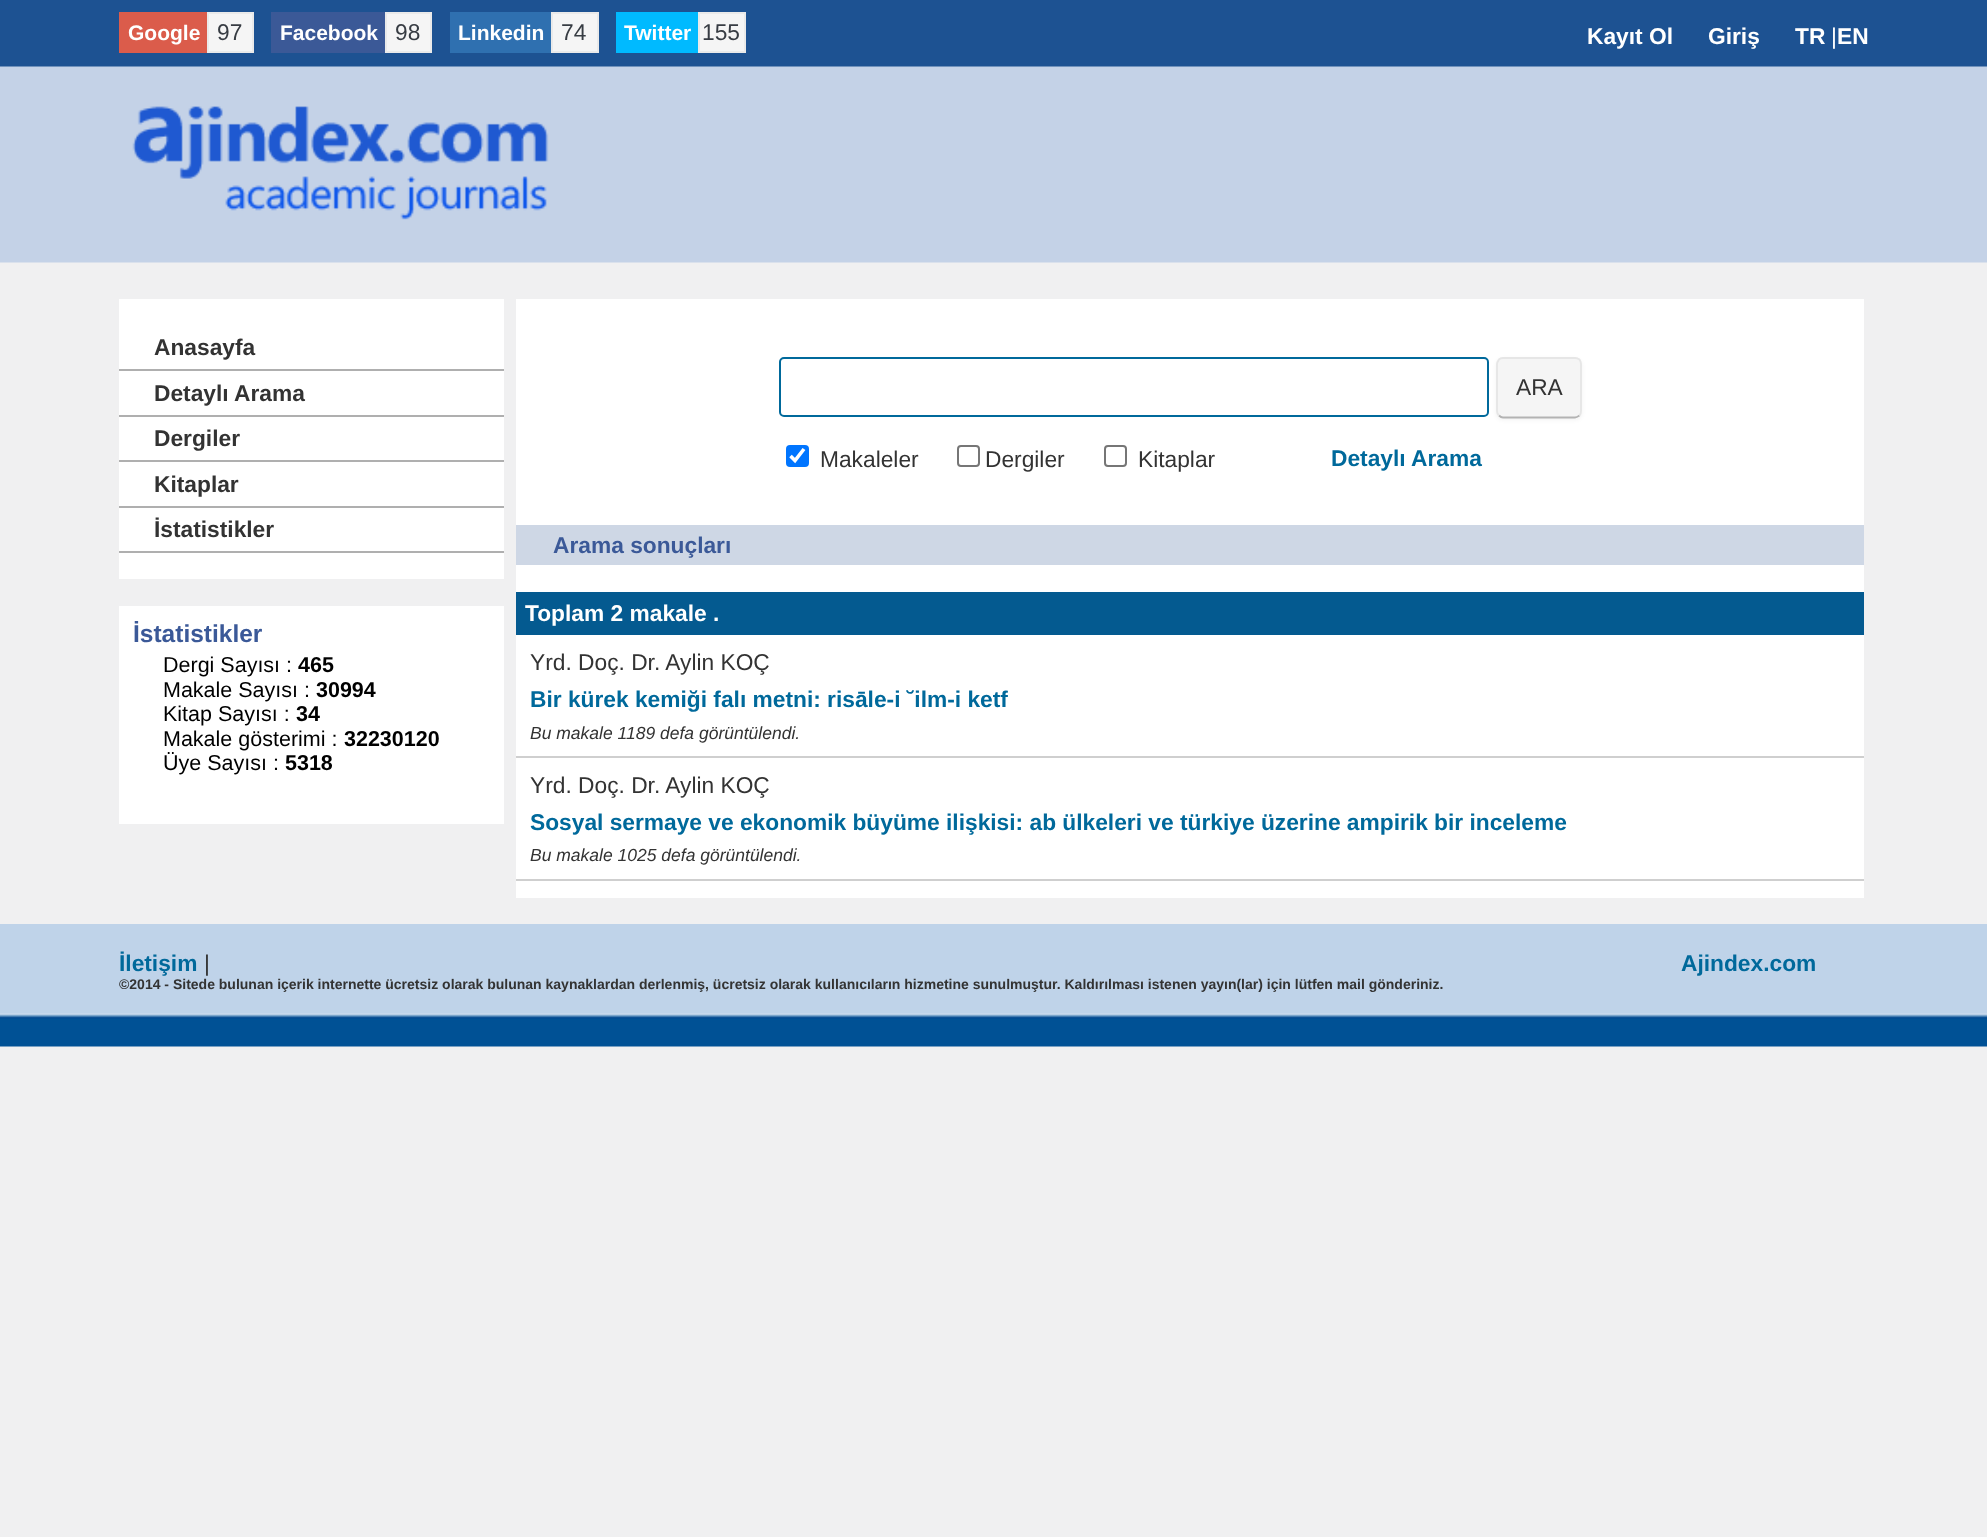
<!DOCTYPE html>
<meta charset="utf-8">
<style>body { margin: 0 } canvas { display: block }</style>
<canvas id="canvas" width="1987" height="1537"></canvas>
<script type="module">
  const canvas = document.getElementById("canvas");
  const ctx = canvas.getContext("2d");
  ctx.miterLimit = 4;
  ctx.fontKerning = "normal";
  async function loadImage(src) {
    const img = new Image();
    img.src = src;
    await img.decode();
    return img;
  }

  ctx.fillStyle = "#f0f0f1";
  ctx.fillRect(0, 0, 1987, 1537);
  ctx.drawImage(await loadImage("img1.png"), 0, 0, 1987, 263);
  ctx.fillStyle = "#db5c4b";
  ctx.fillRect(119, 12, 88, 41);
  ctx.font = "bold 21px Liberation Sans";
  ctx.fillStyle = "#ffffff";
  ctx.fillText("Google", 128, 40);
  ctx.fillStyle = "#f5f5f5";
  ctx.beginPath();
  ctx.rect(208, 13, 45, 39);
  ctx.fill();
  ctx.strokeStyle = "#eaeaea";
  ctx.lineWidth = 2;
  ctx.stroke();
  ctx.font = "22.75px Liberation Sans";
  ctx.fillStyle = "#373c43";
  ctx.fillText("97", 217, 40);
  ctx.fillStyle = "#3b5997";
  ctx.fillRect(271, 12, 114, 41);
  ctx.font = "bold 21px Liberation Sans";
  ctx.fillStyle = "#ffffff";
  ctx.fillText("Facebook", 280, 40);
  ctx.fillStyle = "#f5f5f5";
  ctx.beginPath();
  ctx.rect(386, 13, 45, 39);
  ctx.fill();
  ctx.stroke();
  ctx.font = "22.75px Liberation Sans";
  ctx.fillStyle = "#373c43";
  ctx.fillText("98", 395, 40);
  ctx.fillStyle = "#2f70b0";
  ctx.fillRect(450, 12, 101, 41);
  ctx.font = "bold 21px Liberation Sans";
  ctx.fillStyle = "#ffffff";
  ctx.fillText("Linkedin", 458, 40);
  ctx.fillStyle = "#f5f5f5";
  ctx.beginPath();
  ctx.rect(552, 13, 46, 39);
  ctx.fill();
  ctx.stroke();
  ctx.font = "22.75px Liberation Sans";
  ctx.fillStyle = "#373c43";
  ctx.fillText("74", 561, 40);
  ctx.fillStyle = "#00baff";
  ctx.fillRect(616, 12, 82, 41);
  ctx.font = "bold 21px Liberation Sans";
  ctx.fillStyle = "#ffffff";
  ctx.fillText("Twitter", 624, 40);
  ctx.fillStyle = "#f5f5f5";
  ctx.beginPath();
  ctx.rect(699, 13, 46, 39);
  ctx.fill();
  ctx.stroke();
  ctx.font = "22.75px Liberation Sans";
  ctx.fillStyle = "#373c43";
  ctx.fillText("155", 702, 40);
  ctx.font = "bold 22.75px Liberation Sans";
  ctx.fillStyle = "#ffffff";
  ctx.fillText("Kayıt Ol", 1587, 44);
  ctx.fillText("Giriş", 1708, 44);
  ctx.fillText("TR", 1795, 44);
  ctx.font = "22.75px Liberation Sans";
  ctx.fillText("|", 1831, 44);
  ctx.font = "bold 22.75px Liberation Sans";
  ctx.fillText("EN", 1837, 44);
  ctx.drawImage(await loadImage("img2.png"), 132, 106, 417, 114);
  ctx.fillRect(119, 299, 385, 525);
  ctx.fillStyle = "#afafaf";
  ctx.fillRect(119, 369, 385, 2);
  ctx.fillStyle = "#333333";
  ctx.fillText("Anasayfa", 154, 355);
  ctx.fillStyle = "#afafaf";
  ctx.fillRect(119, 415, 385, 2);
  ctx.fillStyle = "#333333";
  ctx.fillText("Detaylı Arama", 154, 401);
  ctx.fillStyle = "#afafaf";
  ctx.fillRect(119, 460, 385, 2);
  ctx.fillStyle = "#333333";
  ctx.fillText("Dergiler", 154, 446);
  ctx.fillStyle = "#afafaf";
  ctx.fillRect(119, 506, 385, 2);
  ctx.fillStyle = "#333333";
  ctx.fillText("Kitaplar", 154, 492);
  ctx.fillStyle = "#afafaf";
  ctx.fillRect(119, 551, 385, 2);
  ctx.fillStyle = "#333333";
  ctx.fillText("İstatistikler", 154, 537);
  ctx.fillStyle = "#f0f0f1";
  ctx.fillRect(119, 579, 385, 27);
  ctx.font = "bold 24.5px Liberation Sans";
  ctx.fillStyle = "#3b5998";
  ctx.fillText("İstatistikler", 133, 642);
  ctx.font = "21.5px Liberation Sans";
  ctx.fillStyle = "#000000";
  ctx.fillText("Dergi Sayısı :", 163, 672);
  ctx.font = "bold 21.5px Liberation Sans";
  ctx.fillText("465", 298, 672);
  ctx.font = "21.5px Liberation Sans";
  ctx.fillText("Makale Sayısı :", 163, 697);
  ctx.font = "bold 21.5px Liberation Sans";
  ctx.fillText("30994", 316, 697);
  ctx.font = "21.5px Liberation Sans";
  ctx.fillText("Kitap Sayısı :", 163, 721);
  ctx.font = "bold 21.5px Liberation Sans";
  ctx.fillText("34", 296, 721);
  ctx.font = "21.5px Liberation Sans";
  ctx.fillText("Makale gösterimi :", 163, 746);
  ctx.font = "bold 21.5px Liberation Sans";
  ctx.fillText("32230120", 344, 746);
  ctx.font = "21.5px Liberation Sans";
  ctx.fillText("Üye Sayısı :", 163, 770);
  ctx.font = "bold 21.5px Liberation Sans";
  ctx.fillText("5318", 285, 770);
  ctx.fillStyle = "#ffffff";
  ctx.fillRect(516, 299, 1348, 599);
  ctx.beginPath();
  ctx.roundRect(780, 358, 708, 58, 4);
  ctx.strokeStyle = "#00699b";
  ctx.stroke();
  ctx.fillStyle = "rgba(0, 0, 0, 0.05)";
  ctx.filter = "blur(2px)";
  ctx.beginPath();
  ctx.roundRect(1496, 359, 86, 61, 7);
  ctx.fill();
  ctx.filter = "none";
  ctx.fillStyle = "#f5f5f5";
  ctx.beginPath();
  ctx.roundRect(1496, 357, 86, 61, 7);
  ctx.fill();
  ctx.beginPath();
  ctx.moveTo(1579.5, 415.5);
  ctx.bezierCurveTo(1578, 416.5, 1576.5, 417.5, 1575, 417.5);
  ctx.lineTo(1503, 417.5);
  ctx.bezierCurveTo(1501.5, 417.5, 1500, 416.5, 1499, 415.5);
  ctx.strokeStyle = "#b3b3b3";
  ctx.lineWidth = 1.8;
  ctx.stroke();
  ctx.beginPath();
  ctx.moveTo(1499, 415.5);
  ctx.bezierCurveTo(1498, 414.5, 1497, 413, 1497, 411);
  ctx.lineTo(1497, 364);
  ctx.bezierCurveTo(1497, 362.5, 1498, 361, 1499, 359.5);
  ctx.bezierCurveTo(1500, 358.5, 1501.5, 358, 1503, 358);
  ctx.lineTo(1575, 358);
  ctx.bezierCurveTo(1576.5, 358, 1578, 358.5, 1579.5, 359.5);
  ctx.bezierCurveTo(1580.5, 361, 1581, 362.5, 1581, 364);
  ctx.lineTo(1581, 411);
  ctx.bezierCurveTo(1581, 413, 1580.5, 414.5, 1579.5, 415.5);
  ctx.strokeStyle = "#e6e6e6";
  ctx.stroke();
  ctx.font = "22.75px Liberation Sans";
  ctx.fillStyle = "#333333";
  ctx.fillText("ARA", 1516, 395);
  ctx.fillStyle = "#0075ff";
  ctx.beginPath();
  ctx.roundRect(786, 445, 23, 22, 4);
  ctx.fill();
  ctx.beginPath();
  ctx.moveTo(790.5, 456);
  ctx.lineTo(795, 460.5);
  ctx.lineTo(804, 449);
  ctx.strokeStyle = "#ffffff";
  ctx.lineWidth = 3.6;
  ctx.stroke();
  ctx.fillStyle = "#333333";
  ctx.fillText("Makaleler", 820, 467);
  ctx.beginPath();
  ctx.roundRect(958, 446, 21, 20, 3);
  ctx.strokeStyle = "#767676";
  ctx.lineWidth = 2;
  ctx.stroke();
  ctx.fillText("Dergiler", 985, 467);
  ctx.beginPath();
  ctx.roundRect(1105, 446, 21, 20, 3);
  ctx.stroke();
  ctx.fillText("Kitaplar", 1138, 467);
  ctx.font = "bold 22.75px Liberation Sans";
  ctx.fillStyle = "#00699b";
  ctx.fillText("Detaylı Arama", 1331, 466);
  ctx.fillStyle = "#ced7e5";
  ctx.fillRect(516, 525, 1348, 40);
  ctx.fillStyle = "#3b5998";
  ctx.fillText("Arama sonuçları", 553, 553);
  ctx.fillStyle = "#045a90";
  ctx.fillRect(516, 592, 1348, 43);
  ctx.fillStyle = "#ffffff";
  ctx.fillText("Toplam 2 makale .", 525, 621);
  ctx.fillStyle = "#cfcfcf";
  ctx.fillRect(516, 756, 1348, 2);
  ctx.font = "22.75px Liberation Sans";
  ctx.fillStyle = "#333333";
  ctx.fillText("Yrd. Doç. Dr. Aylin KOÇ", 530, 670);
  ctx.font = "bold 22.75px Liberation Sans";
  ctx.fillStyle = "#00699b";
  ctx.fillText("Bir kürek kemiği falı metni: risāle-i ˘ilm-i ketf", 530, 707);
  ctx.font = "italic 17.5px Liberation Sans";
  ctx.fillStyle = "#333333";
  ctx.fillText("Bu makale 1189 defa görüntülendi.", 530, 739);
  ctx.fillStyle = "#cfcfcf";
  ctx.fillRect(516, 879, 1348, 2);
  ctx.font = "22.75px Liberation Sans";
  ctx.fillStyle = "#333333";
  ctx.fillText("Yrd. Doç. Dr. Aylin KOÇ", 530, 793);
  ctx.font = "bold 22.75px Liberation Sans";
  ctx.fillStyle = "#00699b";
  ctx.fillText("Sosyal sermaye ve ekonomik büyüme ilişkisi: ab ülkeleri ve türkiye üzerine ampirik bir inceleme", 530, 830);
  ctx.font = "italic 17.5px Liberation Sans";
  ctx.fillStyle = "#333333";
  ctx.fillText("Bu makale 1025 defa görüntülendi.", 530, 861);
  ctx.drawImage(await loadImage("img3.png"), 0, 924, 1987, 123);
  ctx.font = "bold 22.75px Liberation Sans";
  ctx.fillStyle = "#00699b";
  ctx.fillText("İletişim", 119, 971);
  ctx.font = "22.75px Liberation Sans";
  ctx.fillStyle = "#333333";
  ctx.fillText("|", 204, 971);
  ctx.font = "bold 14px Liberation Sans";
  ctx.fillText("©2014 - Sitede bulunan içerik internette ücretsiz olarak bulunan kaynaklardan derlenmiş, ücretsiz olarak kullanıcıların hizmetine sunulmuştur. Kaldırılması istenen yayın(lar) için lütfen mail gönderiniz.", 119, 989);
  ctx.font = "bold 22.75px Liberation Sans";
  ctx.fillStyle = "#00699b";
  ctx.fillText("Ajindex.com", 1681, 971);
</script>
